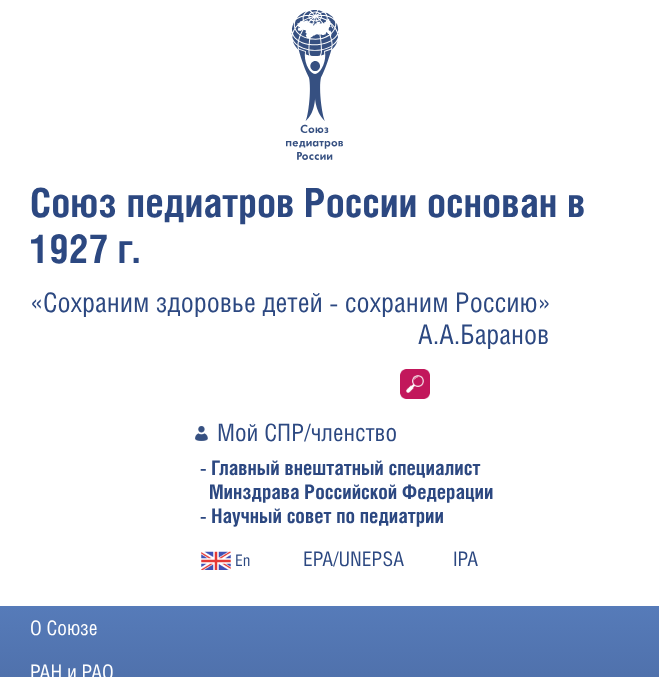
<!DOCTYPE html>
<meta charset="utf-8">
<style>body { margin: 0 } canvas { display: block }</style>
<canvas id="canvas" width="659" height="677"></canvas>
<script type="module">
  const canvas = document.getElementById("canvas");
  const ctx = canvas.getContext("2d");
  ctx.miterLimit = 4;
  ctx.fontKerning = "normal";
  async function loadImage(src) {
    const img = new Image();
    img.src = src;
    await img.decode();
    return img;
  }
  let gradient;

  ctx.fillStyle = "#ffffff";
  ctx.fillRect(0, 0, 659, 677);
  ctx.drawImage(await loadImage("img1.png"), 286, 10, 57, 150);
  ctx.font = "bold 40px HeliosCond";
  ctx.fillStyle = "#2c4881";
  ctx.fillText("Союз педиатров России основан в", 30, 217);
  ctx.fillText("1927 г.", 30, 263);
  ctx.font = "27px HeliosCond";
  ctx.fillText("«Сохраним здоровье детей - сохраним Россию»", 30, 312);
  ctx.fillText("А.А.Баранов", 418, 344);
  ctx.drawImage(await loadImage("img2.png"), 400, 369, 30, 30);
  ctx.drawImage(await loadImage("img3.png"), 195, 426, 13, 15);
  ctx.font = "24px HeliosCond";
  ctx.fillText("Мой СПР/членство", 217, 441);
  ctx.font = "bold 20px HeliosCond";
  ctx.fillText("- Главный внештатный специалист", 200, 475);
  ctx.fillText("Минздрава Российской Федерации", 209, 499);
  ctx.fillText("- Научный совет по педиатрии", 200, 523);
  ctx.drawImage(await loadImage("img4.png"), 201, 551, 30, 19);
  ctx.font = "16px HeliosCond";
  ctx.fillText("En", 235, 566);
  ctx.font = "20px HeliosCond";
  ctx.fillText("EPA/UNEPSA", 303, 566);
  ctx.fillText("IPA", 453, 566);
  gradient = ctx.createLinearGradient(330, 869, 330, 606);
  gradient.addColorStop(0, "#3d5689");
  gradient.addColorStop(0.5, "#4a69a1");
  gradient.addColorStop(1, "#567bb9");
  ctx.fillStyle = gradient;
  ctx.fillRect(0, 606, 659, 71);
  ctx.fillStyle = "#ffffff";
  ctx.fillText("О Союзе", 30, 635);
  ctx.fillText("РАН и РАО", 30, 679);
</script>
